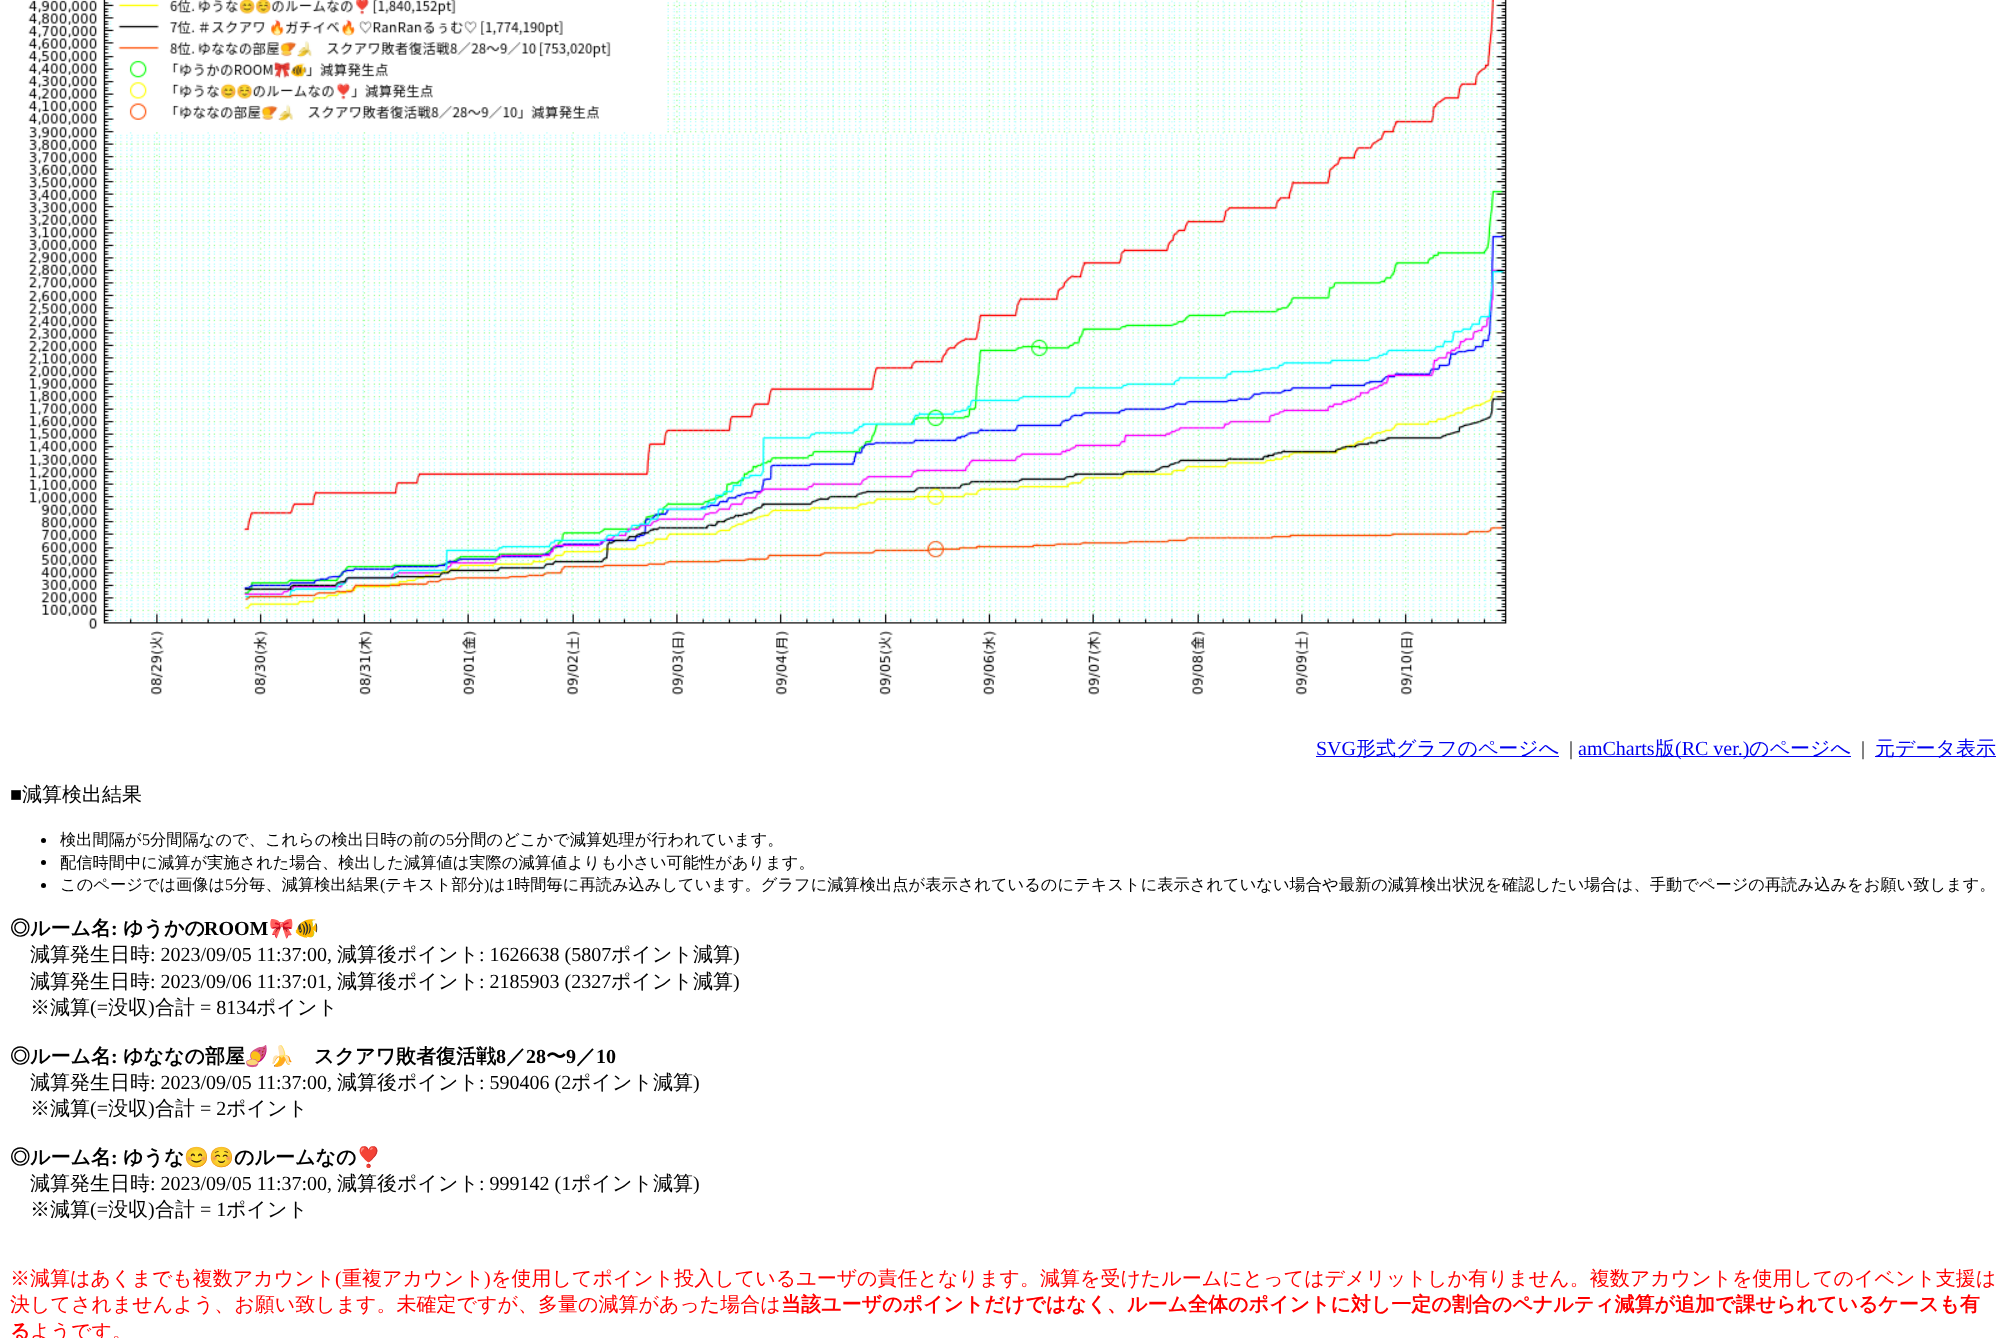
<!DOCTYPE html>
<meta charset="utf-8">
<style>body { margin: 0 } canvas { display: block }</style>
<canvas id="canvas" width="2006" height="1338"></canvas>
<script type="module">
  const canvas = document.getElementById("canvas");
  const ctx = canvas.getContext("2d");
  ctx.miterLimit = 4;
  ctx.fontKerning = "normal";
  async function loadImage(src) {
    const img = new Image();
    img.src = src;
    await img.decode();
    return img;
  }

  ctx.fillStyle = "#ffffff";
  ctx.fillRect(0, 0, 2006, 1338);
  ctx.drawImage(await loadImage("img1.png"), 28, 0, 1479, 695);
  ctx.font = "20px Liberation Serif";
  ctx.fillStyle = "#0000ee";
  ctx.fillText("SVG", 1316, 755);
  ctx.fillRect(1316, 756, 243, 1);
  ctx.font = "500 20px WenQuanYi Zen Hei";
  ctx.fillText("形式グラフのページへ", 1356, 755);
  ctx.font = "20px Liberation Serif";
  ctx.fillStyle = "#000000";
  ctx.fillText("|", 1569, 755);
  ctx.fillStyle = "#0000ee";
  ctx.fillText("amCharts", 1578, 755);
  ctx.fillRect(1579, 756, 272, 1);
  ctx.font = "500 20px WenQuanYi Zen Hei";
  ctx.fillText("版", 1655, 755);
  ctx.font = "20px Liberation Serif";
  ctx.fillText("(RC ver.)", 1675, 755);
  ctx.font = "500 20px WenQuanYi Zen Hei";
  ctx.fillText("のページへ", 1749, 755);
  ctx.font = "20px Liberation Serif";
  ctx.fillStyle = "#000000";
  ctx.fillText("|", 1861, 755);
  ctx.fillStyle = "#0000ee";
  ctx.fillRect(1875, 756, 121, 1);
  ctx.font = "500 20px WenQuanYi Zen Hei";
  ctx.fillText("元データ表示", 1875, 755);
  ctx.font = "20px Liberation Serif";
  ctx.fillStyle = "#000000";
  ctx.fillText("■", 10, 801);
  ctx.font = "500 20px WenQuanYi Zen Hei";
  ctx.fillText("減算検出結果", 22, 801);
  ctx.beginPath();
  ctx.arc(43.5, 840.5, 2.5, 0, Math.PI * 2);
  ctx.fill();
  ctx.font = "500 16.25px WenQuanYi Zen Hei";
  ctx.fillText("検出間隔が", 60, 845);
  ctx.font = "16.25px Liberation Serif";
  ctx.fillText("5", 142, 845);
  ctx.font = "500 16.25px WenQuanYi Zen Hei";
  ctx.fillText("分間隔なので、これらの検出日時の前の", 150, 845);
  ctx.font = "16.25px Liberation Serif";
  ctx.fillText("5", 446, 845);
  ctx.font = "500 16.25px WenQuanYi Zen Hei";
  ctx.fillText("分間のどこかで減算処理が行われています。", 454, 845);
  ctx.beginPath();
  ctx.arc(43.5, 862.5, 2.5, 0, Math.PI * 2);
  ctx.fill();
  ctx.fillText("配信時間中に減算が実施された場合、検出した減算値は実際の減算値よりも小さい可能性があります。", 60, 868);
  ctx.beginPath();
  ctx.arc(43.5, 885.5, 2.5, 0, Math.PI * 2);
  ctx.fill();
  ctx.fillText("このページでは画像は", 60, 890);
  ctx.font = "16.25px Liberation Serif";
  ctx.fillText("5", 225, 890);
  ctx.font = "500 16.25px WenQuanYi Zen Hei";
  ctx.fillText("分毎、減算検出結果", 233, 890);
  ctx.font = "16.25px Liberation Serif";
  ctx.fillText("(", 380, 890);
  ctx.font = "500 16.25px WenQuanYi Zen Hei";
  ctx.fillText("テキスト部分", 385, 890);
  ctx.font = "16.25px Liberation Serif";
  ctx.fillText(")", 484, 890);
  ctx.font = "500 16.25px WenQuanYi Zen Hei";
  ctx.fillText("は", 489, 890);
  ctx.font = "16.25px Liberation Serif";
  ctx.fillText("1", 506, 890);
  ctx.font = "500 16.25px WenQuanYi Zen Hei";
  ctx.fillText("時間毎に再読み込みしています。グラフに減算検出点が表示されているのにテキストに表示されていない場合や最新の減算検出状況を確認したい場合は、手動でページの再読み込みをお願い致します。", 514, 890);
  ctx.font = "bold 20px WenQuanYi Zen Hei";
  ctx.fillText("◎ルーム名", 10, 935);
  ctx.font = "bold 20px Liberation Serif";
  ctx.fillText(":", 111, 935);
  ctx.font = "bold 20px WenQuanYi Zen Hei";
  ctx.fillText("ゆうかの", 123, 935);
  ctx.font = "bold 20px Liberation Serif";
  ctx.fillText("ROOM", 204, 935);
  ctx.font = "bold 20px Noto Color Emoji";
  ctx.fillText("🎀🐠", 269, 935);
  ctx.font = "500 20px WenQuanYi Zen Hei";
  ctx.fillText("減算発生日時", 30, 961);
  ctx.font = "20px Liberation Serif";
  ctx.fillText(": 2023/09/05 11:37:00,", 150, 961);
  ctx.font = "500 20px WenQuanYi Zen Hei";
  ctx.fillText("減算後ポイント", 337, 961);
  ctx.font = "20px Liberation Serif";
  ctx.fillText(": 1626638 (5807", 479, 961);
  ctx.font = "500 20px WenQuanYi Zen Hei";
  ctx.fillText("ポイント減算", 611, 961);
  ctx.font = "20px Liberation Serif";
  ctx.fillText(")", 733, 961);
  ctx.font = "500 20px WenQuanYi Zen Hei";
  ctx.fillText("減算発生日時", 30, 988);
  ctx.font = "20px Liberation Serif";
  ctx.fillText(": 2023/09/06 11:37:01,", 150, 988);
  ctx.font = "500 20px WenQuanYi Zen Hei";
  ctx.fillText("減算後ポイント", 337, 988);
  ctx.font = "20px Liberation Serif";
  ctx.fillText(": 2185903 (2327", 479, 988);
  ctx.font = "500 20px WenQuanYi Zen Hei";
  ctx.fillText("ポイント減算", 611, 988);
  ctx.font = "20px Liberation Serif";
  ctx.fillText(")", 733, 988);
  ctx.font = "500 20px WenQuanYi Zen Hei";
  ctx.fillText("※減算", 30, 1014);
  ctx.font = "20px Liberation Serif";
  ctx.fillText("(=", 90, 1014);
  ctx.font = "500 20px WenQuanYi Zen Hei";
  ctx.fillText("没収", 108, 1014);
  ctx.font = "20px Liberation Serif";
  ctx.fillText(")", 148, 1014);
  ctx.font = "500 20px WenQuanYi Zen Hei";
  ctx.fillText("合計", 155, 1014);
  ctx.font = "20px Liberation Serif";
  ctx.fillText("= 8134", 200, 1014);
  ctx.font = "500 20px WenQuanYi Zen Hei";
  ctx.fillText("ポイント", 256, 1014);
  ctx.font = "bold 20px WenQuanYi Zen Hei";
  ctx.fillText("◎ルーム名", 10, 1063);
  ctx.font = "bold 20px Liberation Serif";
  ctx.fillText(":", 111, 1063);
  ctx.font = "bold 20px WenQuanYi Zen Hei";
  ctx.fillText("ゆななの部屋", 123, 1063);
  ctx.font = "bold 20px Noto Color Emoji";
  ctx.fillText("🍠🍌", 244, 1063);
  ctx.font = "bold 20px WenQuanYi Zen Hei";
  ctx.fillText("スクアワ敗者復活戦", 314, 1063);
  ctx.font = "bold 20px Liberation Serif";
  ctx.fillText("8", 496, 1063);
  ctx.font = "bold 20px WenQuanYi Zen Hei";
  ctx.fillText("／", 506, 1063);
  ctx.font = "bold 20px Liberation Serif";
  ctx.fillText("28", 526, 1063);
  ctx.font = "bold 20px WenQuanYi Zen Hei";
  ctx.fillText("〜", 546, 1063);
  ctx.font = "bold 20px Liberation Serif";
  ctx.fillText("9", 566, 1063);
  ctx.font = "bold 20px WenQuanYi Zen Hei";
  ctx.fillText("／", 576, 1063);
  ctx.font = "bold 20px Liberation Serif";
  ctx.fillText("10", 596, 1063);
  ctx.font = "500 20px WenQuanYi Zen Hei";
  ctx.fillText("減算発生日時", 30, 1089);
  ctx.font = "20px Liberation Serif";
  ctx.fillText(": 2023/09/05 11:37:00,", 150, 1089);
  ctx.font = "500 20px WenQuanYi Zen Hei";
  ctx.fillText("減算後ポイント", 337, 1089);
  ctx.font = "20px Liberation Serif";
  ctx.fillText(": 590406 (2", 479, 1089);
  ctx.font = "500 20px WenQuanYi Zen Hei";
  ctx.fillText("ポイント減算", 571, 1089);
  ctx.font = "20px Liberation Serif";
  ctx.fillText(")", 693, 1089);
  ctx.font = "500 20px WenQuanYi Zen Hei";
  ctx.fillText("※減算", 30, 1115);
  ctx.font = "20px Liberation Serif";
  ctx.fillText("(=", 90, 1115);
  ctx.font = "500 20px WenQuanYi Zen Hei";
  ctx.fillText("没収", 108, 1115);
  ctx.font = "20px Liberation Serif";
  ctx.fillText(")", 148, 1115);
  ctx.font = "500 20px WenQuanYi Zen Hei";
  ctx.fillText("合計", 155, 1115);
  ctx.font = "20px Liberation Serif";
  ctx.fillText("= 2", 200, 1115);
  ctx.font = "500 20px WenQuanYi Zen Hei";
  ctx.fillText("ポイント", 226, 1115);
  ctx.font = "bold 20px WenQuanYi Zen Hei";
  ctx.fillText("◎ルーム名", 10, 1164);
  ctx.font = "bold 20px Liberation Serif";
  ctx.fillText(":", 111, 1164);
  ctx.font = "bold 20px WenQuanYi Zen Hei";
  ctx.fillText("ゆうな", 123, 1164);
  ctx.font = "bold 20px Noto Color Emoji";
  ctx.fillText("😊☺️", 184, 1164);
  ctx.font = "bold 20px WenQuanYi Zen Hei";
  ctx.fillText("のルームなの", 234, 1164);
  ctx.font = "bold 20px Noto Color Emoji";
  ctx.fillText("❣️", 356, 1164);
  ctx.font = "500 20px WenQuanYi Zen Hei";
  ctx.fillText("減算発生日時", 30, 1190);
  ctx.font = "20px Liberation Serif";
  ctx.fillText(": 2023/09/05 11:37:00,", 150, 1190);
  ctx.font = "500 20px WenQuanYi Zen Hei";
  ctx.fillText("減算後ポイント", 337, 1190);
  ctx.font = "20px Liberation Serif";
  ctx.fillText(": 999142 (1", 479, 1190);
  ctx.font = "500 20px WenQuanYi Zen Hei";
  ctx.fillText("ポイント減算", 571, 1190);
  ctx.font = "20px Liberation Serif";
  ctx.fillText(")", 693, 1190);
  ctx.font = "500 20px WenQuanYi Zen Hei";
  ctx.fillText("※減算", 30, 1216);
  ctx.font = "20px Liberation Serif";
  ctx.fillText("(=", 90, 1216);
  ctx.font = "500 20px WenQuanYi Zen Hei";
  ctx.fillText("没収", 108, 1216);
  ctx.font = "20px Liberation Serif";
  ctx.fillText(")", 148, 1216);
  ctx.font = "500 20px WenQuanYi Zen Hei";
  ctx.fillText("合計", 155, 1216);
  ctx.font = "20px Liberation Serif";
  ctx.fillText("= 1", 200, 1216);
  ctx.font = "500 20px WenQuanYi Zen Hei";
  ctx.fillText("ポイント", 226, 1216);
  ctx.fillStyle = "#ff0000";
  ctx.fillText("※減算はあくまでも複数アカウント", 10, 1285);
  ctx.font = "20px Liberation Serif";
  ctx.fillText("(", 335, 1285);
  ctx.font = "500 20px WenQuanYi Zen Hei";
  ctx.fillText("重複アカウント", 342, 1285);
  ctx.font = "20px Liberation Serif";
  ctx.fillText(")", 484, 1285);
  ctx.font = "500 20px WenQuanYi Zen Hei";
  ctx.fillText("を使用してポイント投入しているユーザの責任となります。減算を受けたルームにとってはデメリットしか有りません。複数アカウントを使用してのイベント支援は", 491, 1285);
  ctx.fillText("決してされませんよう、お願い致します。未確定ですが、多量の減算があった場合は", 10, 1311);
  ctx.font = "bold 20px WenQuanYi Zen Hei";
  ctx.fillText("当該ユーザのポイントだけではなく、ルーム全体のポイントに対し一定の割合のペナルティ減算が追加で課せられているケースも有", 781, 1311);
  ctx.fillText("る", 10, 1338);
  ctx.font = "500 20px WenQuanYi Zen Hei";
  ctx.fillText("ようです。", 30, 1338);
</script>
